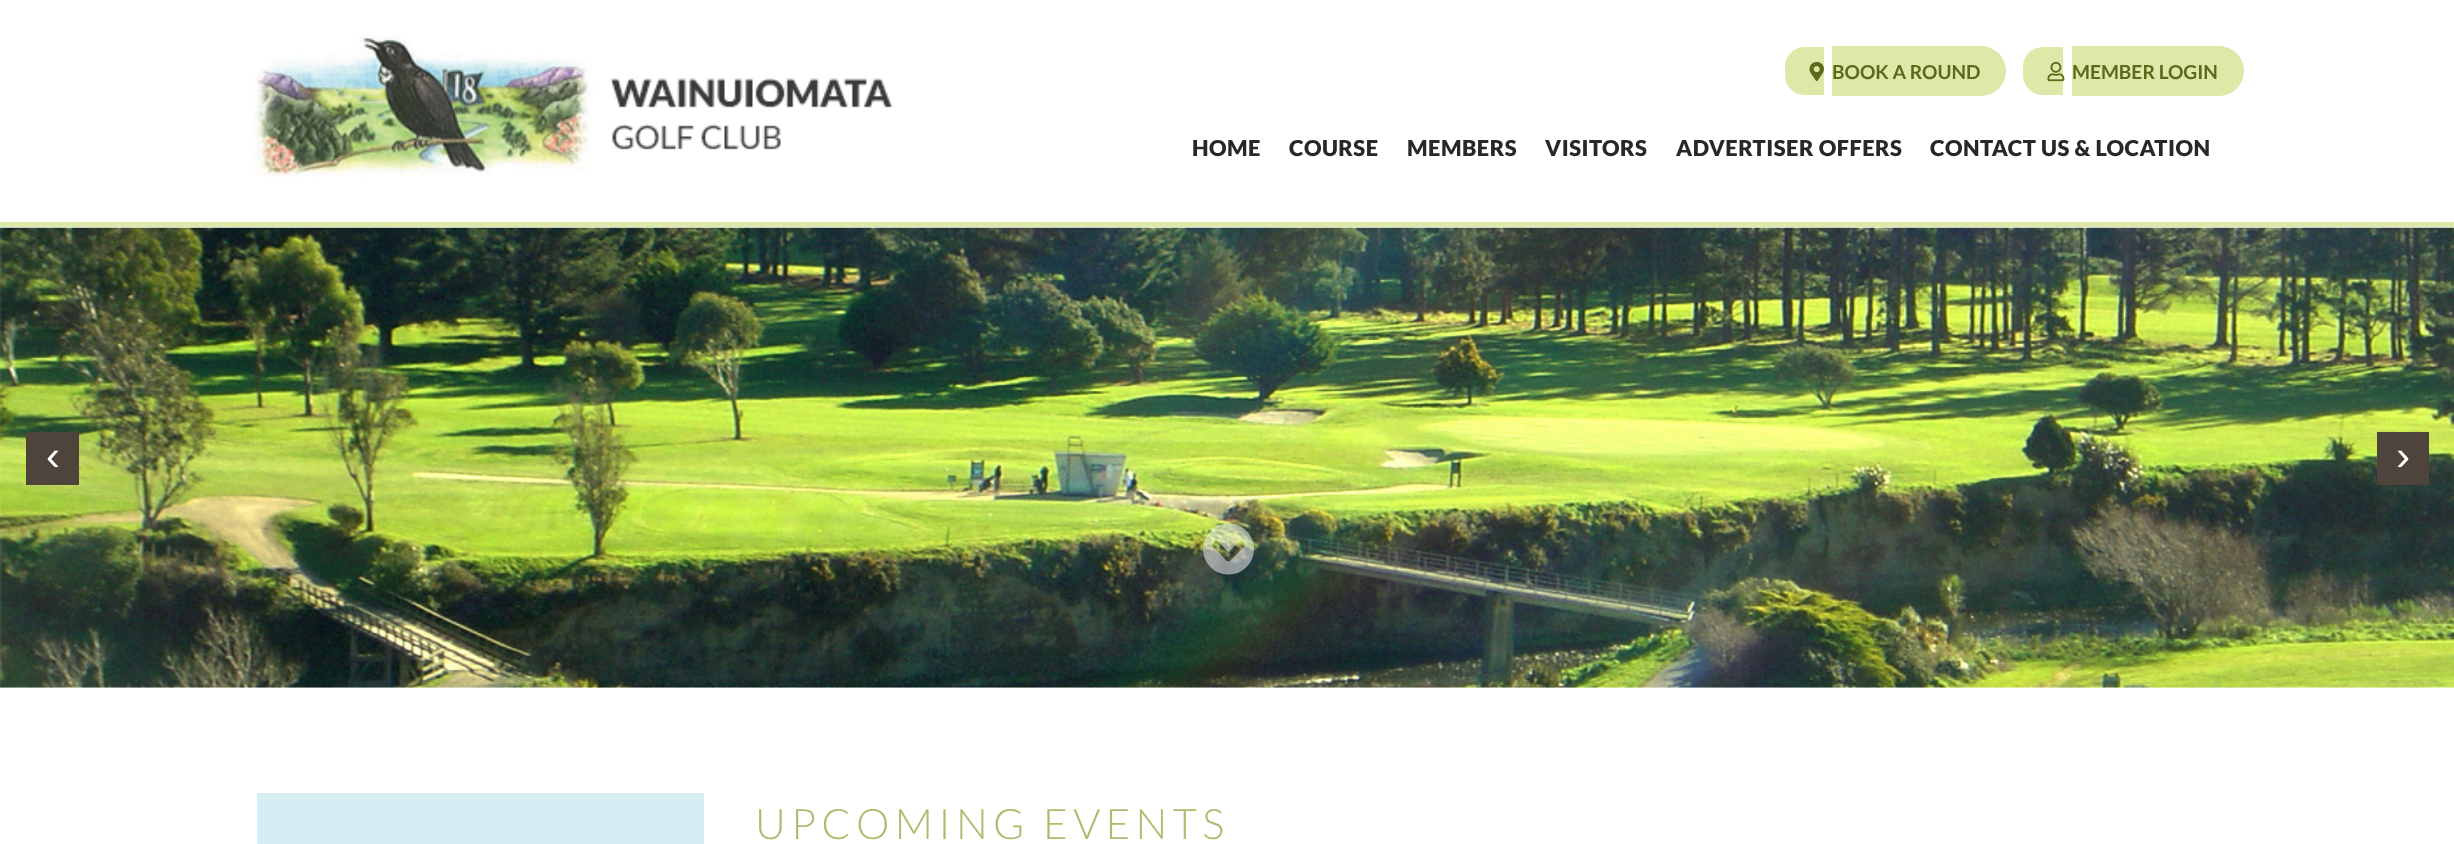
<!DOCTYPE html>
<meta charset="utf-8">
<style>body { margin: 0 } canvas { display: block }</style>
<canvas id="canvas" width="2454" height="844"></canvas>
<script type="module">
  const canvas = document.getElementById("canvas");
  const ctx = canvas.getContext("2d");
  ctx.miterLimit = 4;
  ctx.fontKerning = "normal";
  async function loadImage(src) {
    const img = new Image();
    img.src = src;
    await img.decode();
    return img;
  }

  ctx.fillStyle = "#ffffff";
  ctx.fillRect(0, 0, 2454, 844);
  ctx.fillStyle = "#dee9a9";
  ctx.fillRect(0, 222, 2454, 5);
  ctx.drawImage(await loadImage("img1.png"), 253, 35, 640, 142);
  ctx.beginPath();
  ctx.roundRect(1785, 47, 39, 48, [19.5, 0, 0, 19.5]);
  ctx.fill();
  ctx.beginPath();
  ctx.roundRect(1832, 46, 174, 50, [0, 25, 25, 0]);
  ctx.fill();
  ctx.drawImage(await loadImage("img2.png"), 1809, 61, 15, 21);
  ctx.font = "bold 19.25px Lato";
  ctx.fillStyle = "#5d6a1d";
  ctx.fillText("BOOK A ROUND", 1832, 79);
  ctx.fillStyle = "#dee9a9";
  ctx.beginPath();
  ctx.roundRect(2023, 47, 40, 48, [20, 0, 0, 20]);
  ctx.fill();
  ctx.beginPath();
  ctx.roundRect(2072, 46, 172, 50, [0, 25, 25, 0]);
  ctx.fill();
  ctx.drawImage(await loadImage("img3.png"), 2047, 61, 18, 21);
  ctx.fillStyle = "#5d6a1d";
  ctx.fillText("MEMBER LOGIN", 2072, 79);
  ctx.letterSpacing = "0.5px";
  ctx.font = "900 21.9px Lato";
  ctx.fillStyle = "#282828";
  ctx.fillText("HOME", 1192, 156);
  ctx.fillText("COURSE", 1289, 156);
  ctx.fillText("MEMBERS", 1407, 156);
  ctx.fillText("VISITORS", 1545, 156);
  ctx.fillText("ADVERTISER OFFERS", 1676, 156);
  ctx.fillText("CONTACT US & LOCATION", 1930, 156);
  ctx.drawImage(await loadImage("img4.png"), 0, 227, 2454, 461);
  ctx.fillStyle = "#4e443c";
  ctx.fillRect(26, 432, 53, 53);
  ctx.letterSpacing = "0px";
  ctx.font = "42px Liberation Sans";
  ctx.fillStyle = "#ffffff";
  ctx.fillText("‹", 46, 470);
  ctx.fillStyle = "#4e443c";
  ctx.fillRect(2377, 432, 52, 53);
  ctx.fillStyle = "#ffffff";
  ctx.fillText("›", 2396, 470);
  ctx.drawImage(await loadImage("img5.png"), 1203, 523, 51, 52);
  ctx.fillStyle = "#d6eef3";
  ctx.fillRect(257, 793, 447, 51);
  ctx.letterSpacing = "5.25px";
  ctx.font = "300 42px Lato";
  ctx.fillStyle = "#aebb6e";
  ctx.fillText("UPCOMING EVENTS", 755, 839);
</script>
